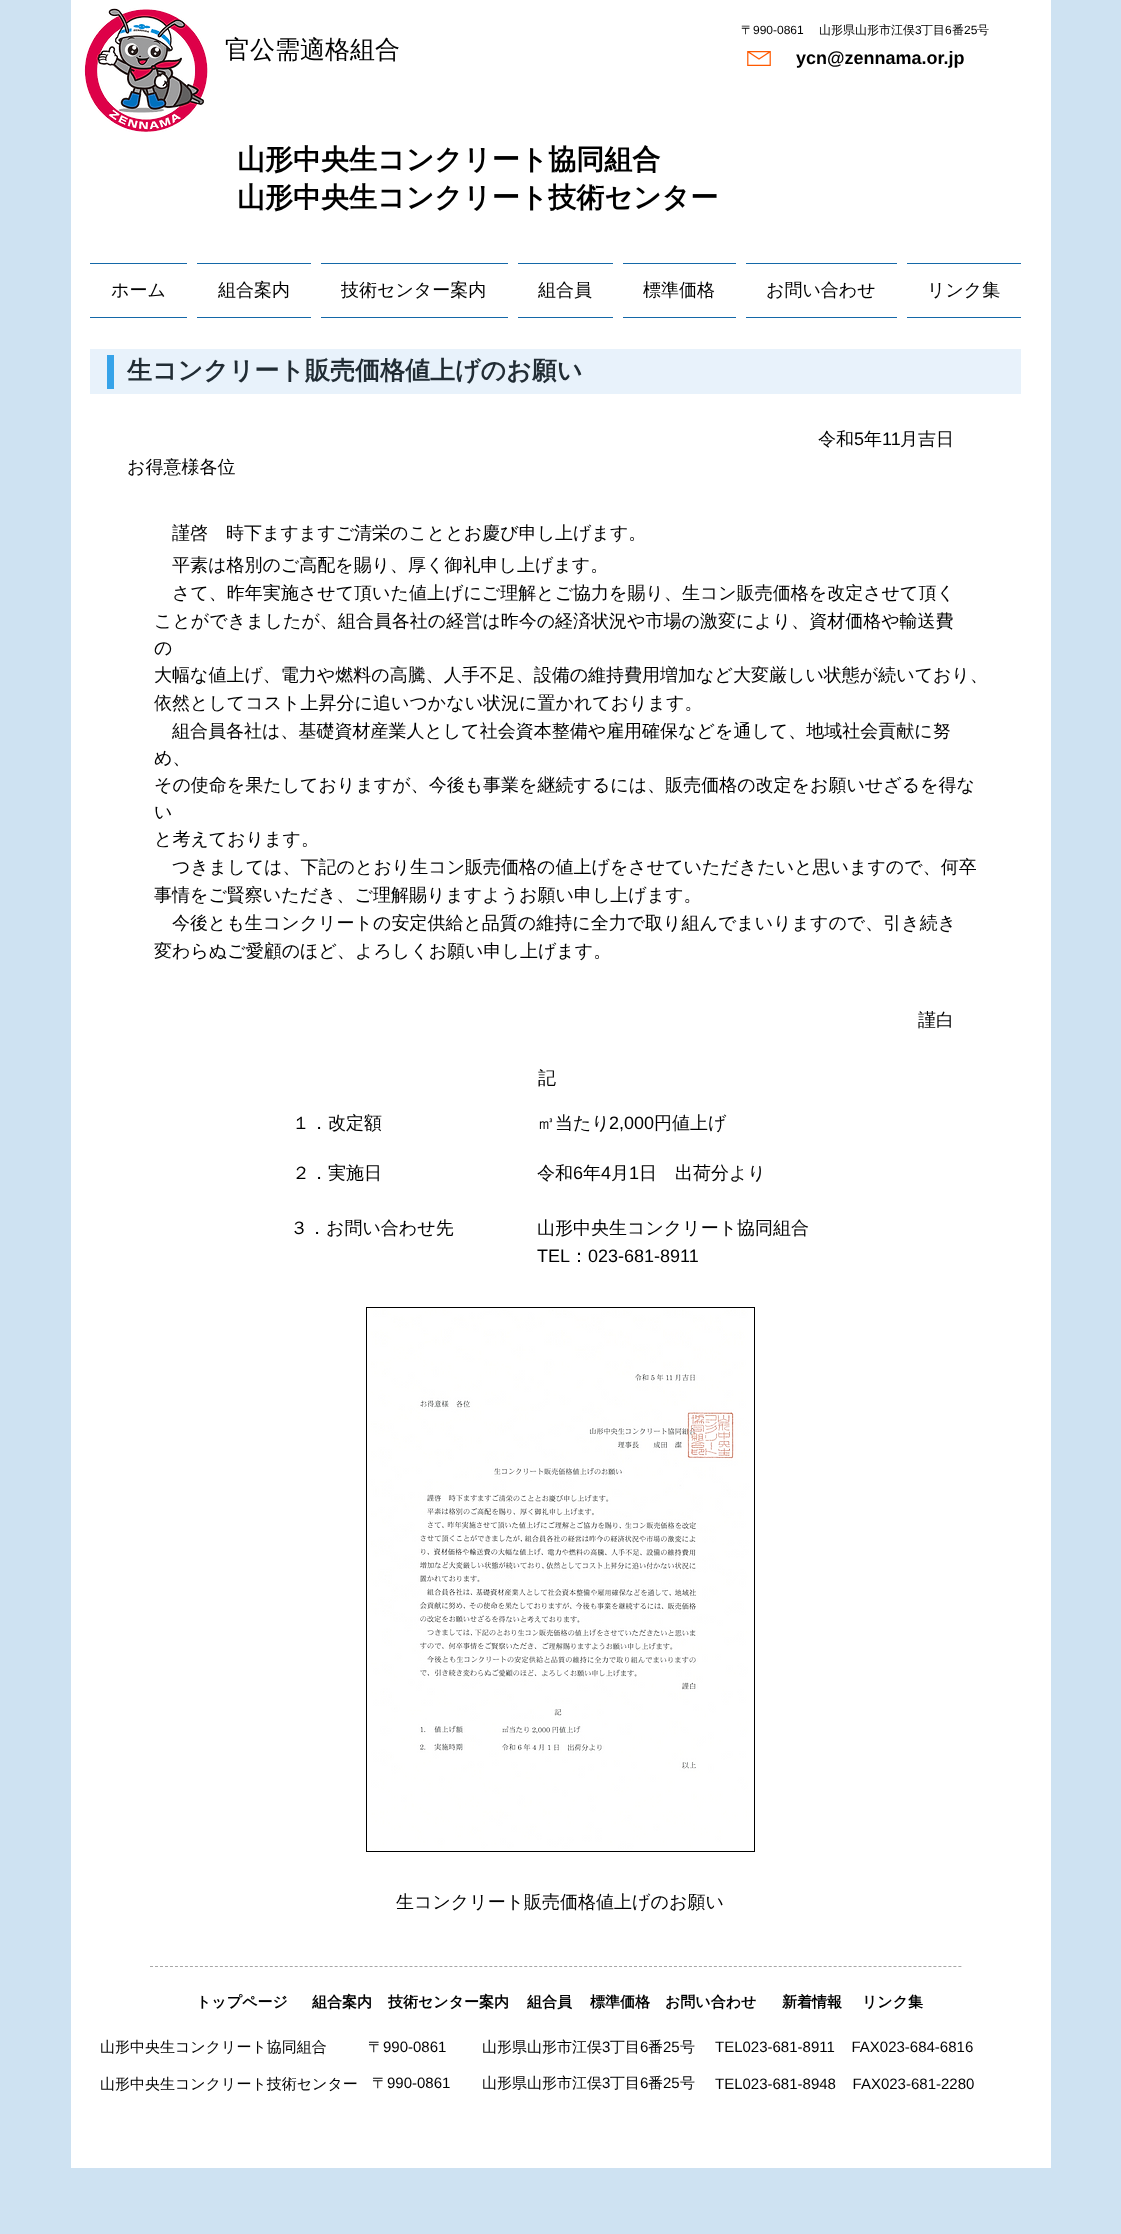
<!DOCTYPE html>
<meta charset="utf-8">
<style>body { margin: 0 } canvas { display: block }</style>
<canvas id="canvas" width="1121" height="2234"></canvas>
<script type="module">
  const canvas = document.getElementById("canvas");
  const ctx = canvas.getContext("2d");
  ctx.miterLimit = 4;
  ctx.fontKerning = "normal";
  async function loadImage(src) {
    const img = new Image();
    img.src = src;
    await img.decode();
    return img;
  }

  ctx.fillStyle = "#cee2f2";
  ctx.fillRect(0, 0, 1121, 2234);
  ctx.fillStyle = "#ffffff";
  ctx.fillRect(71, 0, 980, 2168);
  ctx.drawImage(await loadImage("img1.png"), 84, 8, 124, 124);
  ctx.font = "500 12px WenQuanYi Zen Hei";
  ctx.fillStyle = "#000000";
  ctx.fillText("〒", 741, 34);
  ctx.font = "12px Liberation Sans";
  ctx.fillText("990-0861", 753, 34);
  ctx.font = "500 12px WenQuanYi Zen Hei";
  ctx.fillText("山形県山形市江俣", 819, 34);
  ctx.font = "12px Liberation Sans";
  ctx.fillText("3", 915, 34);
  ctx.font = "500 12px WenQuanYi Zen Hei";
  ctx.fillText("丁目", 921, 34);
  ctx.font = "12px Liberation Sans";
  ctx.fillText("6", 945, 34);
  ctx.font = "500 12px WenQuanYi Zen Hei";
  ctx.fillText("番", 952, 34);
  ctx.font = "12px Liberation Sans";
  ctx.fillText("25", 964, 34);
  ctx.font = "500 12px WenQuanYi Zen Hei";
  ctx.fillText("号", 977, 34);
  ctx.font = "500 25px WenQuanYi Zen Hei";
  ctx.fillText("官公需適格組合", 225, 58);
  ctx.drawImage(await loadImage("img2.png"), 747, 51, 24, 15);
  ctx.font = "bold 18px Liberation Sans";
  ctx.fillText("ycn@zennama.or.jp", 796, 64);
  ctx.font = "bold 28px WenQuanYi Zen Hei";
  ctx.fillText("山形中央生コンクリート協同組合", 237, 169);
  ctx.fillText("山形中央生コンクリート技術センター", 237, 207);
  ctx.fillStyle = "#1468a8";
  ctx.fillRect(90, 263, 97, 1);
  ctx.fillRect(90, 317, 97, 1);
  ctx.font = "500 18px WenQuanYi Zen Hei";
  ctx.fillStyle = "#000000";
  ctx.fillText("ホーム", 111, 296);
  ctx.fillStyle = "#1468a8";
  ctx.fillRect(197, 263, 114, 1);
  ctx.fillRect(197, 317, 114, 1);
  ctx.fillStyle = "#000000";
  ctx.fillText("組合案内", 218, 296);
  ctx.fillStyle = "#1468a8";
  ctx.fillRect(321, 263, 187, 1);
  ctx.fillRect(321, 317, 187, 1);
  ctx.fillStyle = "#000000";
  ctx.fillText("技術センター案内", 341, 296);
  ctx.fillStyle = "#1468a8";
  ctx.fillRect(518, 263, 95, 1);
  ctx.fillRect(518, 317, 95, 1);
  ctx.fillStyle = "#000000";
  ctx.fillText("組合員", 538, 296);
  ctx.fillStyle = "#1468a8";
  ctx.fillRect(623, 263, 113, 1);
  ctx.fillRect(623, 317, 113, 1);
  ctx.fillStyle = "#000000";
  ctx.fillText("標準価格", 643, 296);
  ctx.fillStyle = "#1468a8";
  ctx.fillRect(746, 263, 151, 1);
  ctx.fillRect(746, 317, 151, 1);
  ctx.fillStyle = "#000000";
  ctx.fillText("お問い合わせ", 766, 296);
  ctx.fillStyle = "#1468a8";
  ctx.fillRect(907, 263, 114, 1);
  ctx.fillRect(907, 317, 114, 1);
  ctx.fillStyle = "#000000";
  ctx.fillText("リンク集", 927, 296);
  ctx.fillStyle = "#e8f2fb";
  ctx.fillRect(90, 349, 931, 45);
  ctx.fillStyle = "#36a3e9";
  ctx.fillRect(107, 355, 7, 34);
  ctx.font = "bold 25px WenQuanYi Zen Hei";
  ctx.fillStyle = "#212c34";
  ctx.fillText("生コンクリート販売価格値上げのお願い", 127, 379);
  ctx.font = "500 18px WenQuanYi Zen Hei";
  ctx.fillStyle = "#000000";
  ctx.fillText("令和", 818, 445);
  ctx.font = "18px Liberation Sans";
  ctx.fillText("5", 854, 445);
  ctx.font = "500 18px WenQuanYi Zen Hei";
  ctx.fillText("年", 864, 445);
  ctx.font = "18px Liberation Sans";
  ctx.fillText("11", 882, 445);
  ctx.font = "500 18px WenQuanYi Zen Hei";
  ctx.fillText("月吉日", 900, 445);
  ctx.fillText("お得意様各位", 127, 473);
  ctx.fillText("謹啓　時下ますますご清栄のこととお慶び申し上げます。", 172, 539);
  ctx.fillText("平素は格別のご高配を賜り、厚く御礼申し上げます。", 172, 571);
  ctx.fillText("さて、昨年実施させて頂いた値上げにご理解とご協力を賜り、生コン販売価格を改定させて頂く", 172, 599);
  ctx.fillText("ことができましたが、組合員各社の経営は昨今の経済状況や市場の激変により、資材価格や輸送費", 154, 627);
  ctx.fillText("の", 154, 654);
  ctx.fillText("大幅な値上げ、電力や燃料の高騰、人手不足、設備の維持費用増加など大変厳しい状態が続いており、", 154, 681);
  ctx.fillText("依然としてコスト上昇分に追いつかない状況に置かれております。", 154, 709);
  ctx.fillText("組合員各社は、基礎資材産業人として社会資本整備や雇用確保などを通して、地域社会貢献に努", 172, 737);
  ctx.fillText("め、", 154, 764);
  ctx.fillText("その使命を果たしておりますが、今後も事業を継続するには、販売価格の改定をお願いせざるを得な", 154, 791);
  ctx.fillText("い", 154, 818);
  ctx.fillText("と考えております。", 154, 845);
  ctx.fillText("つきましては、下記のとおり生コン販売価格の値上げをさせていただきたいと思いますので、何卒", 172, 873);
  ctx.fillText("事情をご賢察いただき、ご理解賜りますようお願い申し上げます。", 154, 901);
  ctx.fillText("今後とも生コンクリートの安定供給と品質の維持に全力で取り組んでまいりますので、引き続き", 172, 929);
  ctx.fillText("変わらぬご愛顧のほど、よろしくお願い申し上げます。", 154, 957);
  ctx.fillText("謹白", 918, 1026);
  ctx.fillText("記", 538, 1084);
  ctx.fillText("１．改定額", 292, 1129);
  ctx.fillText("㎥当たり", 537, 1129);
  ctx.font = "18px Liberation Sans";
  ctx.fillText("2,000", 609, 1129);
  ctx.font = "500 18px WenQuanYi Zen Hei";
  ctx.fillText("円値上げ", 654, 1129);
  ctx.fillText("２．実施日", 292, 1179);
  ctx.fillText("令和", 537, 1179);
  ctx.font = "18px Liberation Sans";
  ctx.fillText("6", 573, 1179);
  ctx.font = "500 18px WenQuanYi Zen Hei";
  ctx.fillText("年", 583, 1179);
  ctx.font = "18px Liberation Sans";
  ctx.fillText("4", 601, 1179);
  ctx.font = "500 18px WenQuanYi Zen Hei";
  ctx.fillText("月", 611, 1179);
  ctx.font = "18px Liberation Sans";
  ctx.fillText("1", 629, 1179);
  ctx.font = "500 18px WenQuanYi Zen Hei";
  ctx.fillText("日　出荷分より", 639, 1179);
  ctx.fillText("３．お問い合わせ先", 290, 1234);
  ctx.fillText("山形中央生コンクリート協同組合", 537, 1234);
  ctx.font = "18px Liberation Sans";
  ctx.fillText("TEL", 537, 1262);
  ctx.font = "500 18px WenQuanYi Zen Hei";
  ctx.fillText("：", 570, 1262);
  ctx.font = "18px Liberation Sans";
  ctx.fillText("023-681-8911", 588, 1262);
  ctx.fillRect(366, 1307, 389, 545);
  ctx.drawImage(await loadImage("img3.png"), 367, 1308, 387, 543);
  ctx.font = "500 18px WenQuanYi Zen Hei";
  ctx.fillText("生コンクリート販売価格値上げのお願い", 396, 1908);
  ctx.beginPath();
  ctx.moveTo(150, 1966.5);
  ctx.lineTo(962, 1966.5);
  ctx.strokeStyle = "#a6a6a6";
  ctx.setLineDash([3, 1.99]);
  ctx.stroke();
  ctx.font = "bold 15px WenQuanYi Zen Hei";
  ctx.fillText("トップページ", 196, 2007);
  ctx.fillText("組合案内", 312, 2007);
  ctx.fillText("技術センター案内", 388, 2007);
  ctx.fillText("組合員", 527, 2007);
  ctx.fillText("標準価格", 590, 2007);
  ctx.fillText("お問い合わせ", 665, 2007);
  ctx.fillText("新着情報", 782, 2007);
  ctx.fillText("リンク集", 862, 2007);
  ctx.font = "500 15px WenQuanYi Zen Hei";
  ctx.fillText("山形中央生コンクリート協同組合", 100, 2052);
  ctx.fillText("〒", 368, 2052);
  ctx.font = "15px Liberation Sans";
  ctx.fillText("990-0861", 383, 2052);
  ctx.font = "500 15px WenQuanYi Zen Hei";
  ctx.fillText("山形県山形市江俣", 482, 2052);
  ctx.font = "15px Liberation Sans";
  ctx.fillText("3", 602, 2052);
  ctx.font = "500 15px WenQuanYi Zen Hei";
  ctx.fillText("丁目", 610, 2052);
  ctx.font = "15px Liberation Sans";
  ctx.fillText("6", 640, 2052);
  ctx.font = "500 15px WenQuanYi Zen Hei";
  ctx.fillText("番", 648, 2052);
  ctx.font = "15px Liberation Sans";
  ctx.fillText("25", 663, 2052);
  ctx.font = "500 15px WenQuanYi Zen Hei";
  ctx.fillText("号", 680, 2052);
  ctx.font = "15px Liberation Sans";
  ctx.fillText("TEL023-681-8911    FAX023-684-6816", 715, 2052);
  ctx.font = "500 15px WenQuanYi Zen Hei";
  ctx.fillText("山形中央生コンクリート技術センター", 100, 2089);
  ctx.fillText("〒", 372, 2088);
  ctx.font = "15px Liberation Sans";
  ctx.fillText("990-0861", 387, 2088);
  ctx.font = "500 15px WenQuanYi Zen Hei";
  ctx.fillText("山形県山形市江俣", 482, 2088);
  ctx.font = "15px Liberation Sans";
  ctx.fillText("3", 602, 2088);
  ctx.font = "500 15px WenQuanYi Zen Hei";
  ctx.fillText("丁目", 610, 2088);
  ctx.font = "15px Liberation Sans";
  ctx.fillText("6", 640, 2088);
  ctx.font = "500 15px WenQuanYi Zen Hei";
  ctx.fillText("番", 648, 2088);
  ctx.font = "15px Liberation Sans";
  ctx.fillText("25", 663, 2088);
  ctx.font = "500 15px WenQuanYi Zen Hei";
  ctx.fillText("号", 680, 2088);
  ctx.font = "15px Liberation Sans";
  ctx.fillText("TEL023-681-8948    FAX023-681-2280", 715, 2089);
</script>
